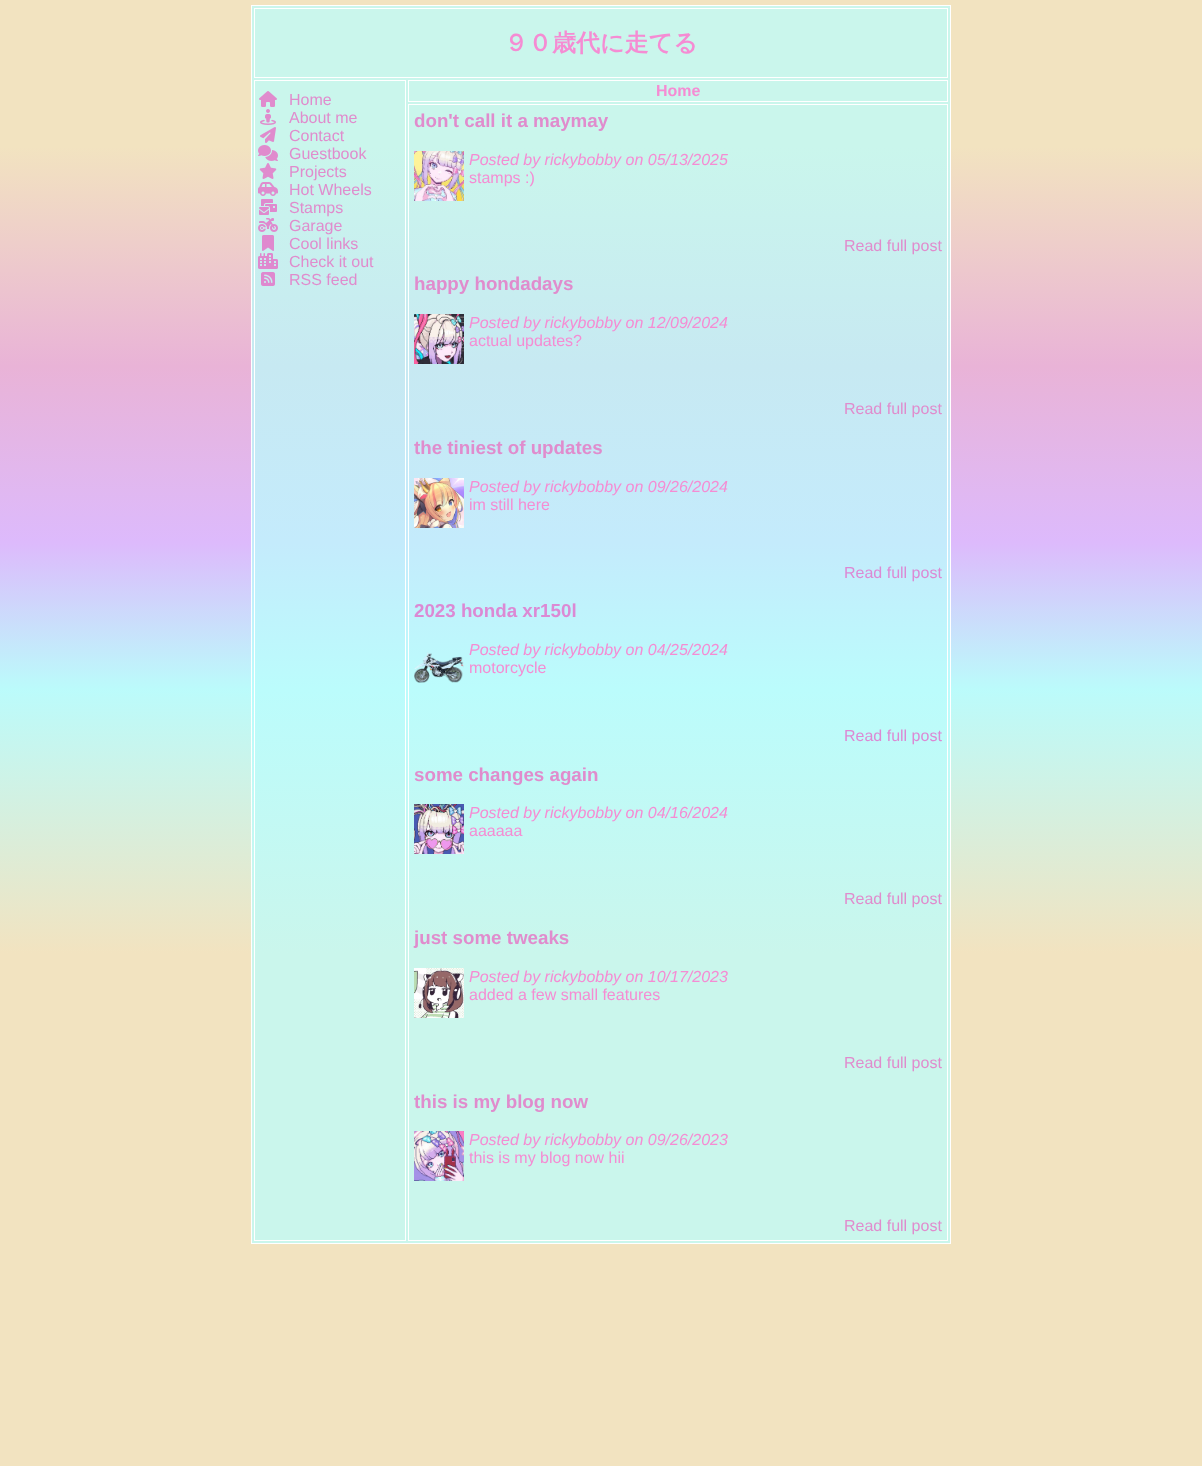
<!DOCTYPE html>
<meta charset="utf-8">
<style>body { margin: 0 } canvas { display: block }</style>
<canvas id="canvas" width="1202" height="1466"></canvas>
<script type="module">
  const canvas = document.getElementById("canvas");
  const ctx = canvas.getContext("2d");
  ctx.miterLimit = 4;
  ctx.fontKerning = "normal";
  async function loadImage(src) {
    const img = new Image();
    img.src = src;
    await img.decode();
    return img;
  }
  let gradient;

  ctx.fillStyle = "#ffffff";
  ctx.fillRect(0, 0, 1202, 1466);
  gradient = ctx.createLinearGradient(601, 1466, 601, 0);
  gradient.addColorStop(0.35, "#f2e3c0");
  gradient.addColorStop(0.53, "#bbfbfb");
  gradient.addColorStop(0.63, "#ddbafc");
  gradient.addColorStop(0.75, "#e9b3d7");
  gradient.addColorStop(0.9, "#f2e3c0");
  ctx.fillStyle = gradient;
  ctx.fillRect(0, 0, 1202, 1466);
  gradient = ctx.createLinearGradient(601, 1466, 601, 0);
  gradient.addColorStop(0.35, "#caf6ec");
  gradient.addColorStop(0.53, "#bbfcfc");
  gradient.addColorStop(0.63, "#c4ebfc");
  gradient.addColorStop(0.75, "#c7e9f2");
  gradient.addColorStop(0.9, "#caf6ec");
  ctx.fillStyle = gradient;
  ctx.fillRect(252, 6, 698, 1237);
  ctx.strokeStyle = "#ffffff";
  ctx.strokeRect(251.5, 5.5, 699, 1238);
  ctx.strokeRect(254.5, 8.5, 693, 69);
  ctx.font = "bold 24px WenQuanYi Zen Hei";
  ctx.fillStyle = "#f58cd3";
  ctx.fillText("９０歳代に走てる", 504, 51);
  ctx.strokeRect(408.5, 80.5, 539, 21);
  ctx.font = "bold 16px Liberation Sans";
  ctx.fillText("Home", 656, 96);
  ctx.strokeRect(254.5, 80.5, 151, 1160);
  ctx.drawImage(await loadImage("img1.png"), 259, 91, 18, 16);
  ctx.font = "16px Liberation Sans";
  ctx.fillStyle = "#e08ccd";
  ctx.fillText("Home", 289, 105);
  ctx.drawImage(await loadImage("img2.png"), 260, 109, 16, 16);
  ctx.fillText("About me", 289, 123);
  ctx.drawImage(await loadImage("img3.png"), 260, 127, 16, 16);
  ctx.fillText("Contact", 289, 141);
  ctx.drawImage(await loadImage("img4.png"), 258, 145, 20, 16);
  ctx.fillText("Guestbook", 289, 159);
  ctx.drawImage(await loadImage("img5.png"), 259, 163, 18, 16);
  ctx.fillText("Projects", 289, 177);
  ctx.drawImage(await loadImage("img6.png"), 258, 182, 20, 14);
  ctx.fillText("Hot Wheels", 289, 195);
  ctx.drawImage(await loadImage("img7.png"), 259, 199, 18, 16);
  ctx.fillText("Stamps", 289, 213);
  ctx.drawImage(await loadImage("img8.png"), 258, 218, 20, 14);
  ctx.fillText("Garage", 289, 231);
  ctx.drawImage(await loadImage("img9.png"), 262, 235, 12, 16);
  ctx.fillText("Cool links", 289, 249);
  ctx.drawImage(await loadImage("img10.png"), 258, 253, 20, 16);
  ctx.fillText("Check it out", 289, 267);
  ctx.drawImage(await loadImage("img11.png"), 261, 272, 14, 14);
  ctx.fillText("RSS feed", 289, 285);
  ctx.strokeRect(408.5, 104.5, 539, 1136);
  ctx.font = "bold 18.75px Liberation Sans";
  ctx.fillText("don't call it a maymay", 414, 127);
  ctx.drawImage(await loadImage("img12.png"), 414, 151, 50, 50);
  ctx.font = "italic 16px Liberation Sans";
  ctx.fillStyle = "#f58cd3";
  ctx.fillText("Posted by rickybobby on 05/13/2025", 469, 165);
  ctx.font = "16px Liberation Sans";
  ctx.fillText("stamps :)", 469, 183);
  ctx.fillStyle = "#e08ccd";
  ctx.fillText("Read full post", 844, 251);
  ctx.font = "bold 18.75px Liberation Sans";
  ctx.fillText("happy hondadays", 414, 290);
  ctx.drawImage(await loadImage("img13.png"), 414, 314, 50, 50);
  ctx.font = "italic 16px Liberation Sans";
  ctx.fillStyle = "#f58cd3";
  ctx.fillText("Posted by rickybobby on 12/09/2024", 469, 328);
  ctx.font = "16px Liberation Sans";
  ctx.fillText("actual updates?", 469, 346);
  ctx.fillStyle = "#e08ccd";
  ctx.fillText("Read full post", 844, 414);
  ctx.font = "bold 18.75px Liberation Sans";
  ctx.fillText("the tiniest of updates", 414, 454);
  ctx.drawImage(await loadImage("img14.png"), 414, 478, 50, 50);
  ctx.font = "italic 16px Liberation Sans";
  ctx.fillStyle = "#f58cd3";
  ctx.fillText("Posted by rickybobby on 09/26/2024", 469, 492);
  ctx.font = "16px Liberation Sans";
  ctx.fillText("im still here", 469, 510);
  ctx.fillStyle = "#dc89d4";
  ctx.fillText("Read full post", 844, 578);
  ctx.font = "bold 18.75px Liberation Sans";
  ctx.fillText("2023 honda xr150l", 414, 617);
  ctx.drawImage(await loadImage("img15.png"), 414, 652, 50, 31);
  ctx.font = "italic 16px Liberation Sans";
  ctx.fillStyle = "#f58cd3";
  ctx.fillText("Posted by rickybobby on 04/25/2024", 469, 655);
  ctx.font = "16px Liberation Sans";
  ctx.fillText("motorcycle", 469, 673);
  ctx.fillStyle = "#dc89d4";
  ctx.fillText("Read full post", 844, 741);
  ctx.font = "bold 18.75px Liberation Sans";
  ctx.fillStyle = "#e08ccd";
  ctx.fillText("some changes again", 414, 781);
  ctx.drawImage(await loadImage("img16.png"), 414, 804, 50, 50);
  ctx.font = "italic 16px Liberation Sans";
  ctx.fillStyle = "#f58cd3";
  ctx.fillText("Posted by rickybobby on 04/16/2024", 469, 818);
  ctx.font = "16px Liberation Sans";
  ctx.fillText("aaaaaa", 469, 836);
  ctx.fillStyle = "#e08ccd";
  ctx.fillText("Read full post", 844, 904);
  ctx.font = "bold 18.75px Liberation Sans";
  ctx.fillText("just some tweaks", 414, 944);
  ctx.drawImage(await loadImage("img17.png"), 414, 968, 50, 50);
  ctx.font = "italic 16px Liberation Sans";
  ctx.fillStyle = "#f58cd3";
  ctx.fillText("Posted by rickybobby on 10/17/2023", 469, 982);
  ctx.font = "16px Liberation Sans";
  ctx.fillText("added a few small features", 469, 1000);
  ctx.fillStyle = "#e08ccd";
  ctx.fillText("Read full post", 844, 1068);
  ctx.font = "bold 18.75px Liberation Sans";
  ctx.fillText("this is my blog now", 414, 1108);
  ctx.drawImage(await loadImage("img18.png"), 414, 1131, 50, 50);
  ctx.font = "italic 16px Liberation Sans";
  ctx.fillStyle = "#f58cd3";
  ctx.fillText("Posted by rickybobby on 09/26/2023", 469, 1145);
  ctx.font = "16px Liberation Sans";
  ctx.fillText("this is my blog now hii", 469, 1163);
  ctx.fillStyle = "#e08ccd";
  ctx.fillText("Read full post", 844, 1231);
</script>
